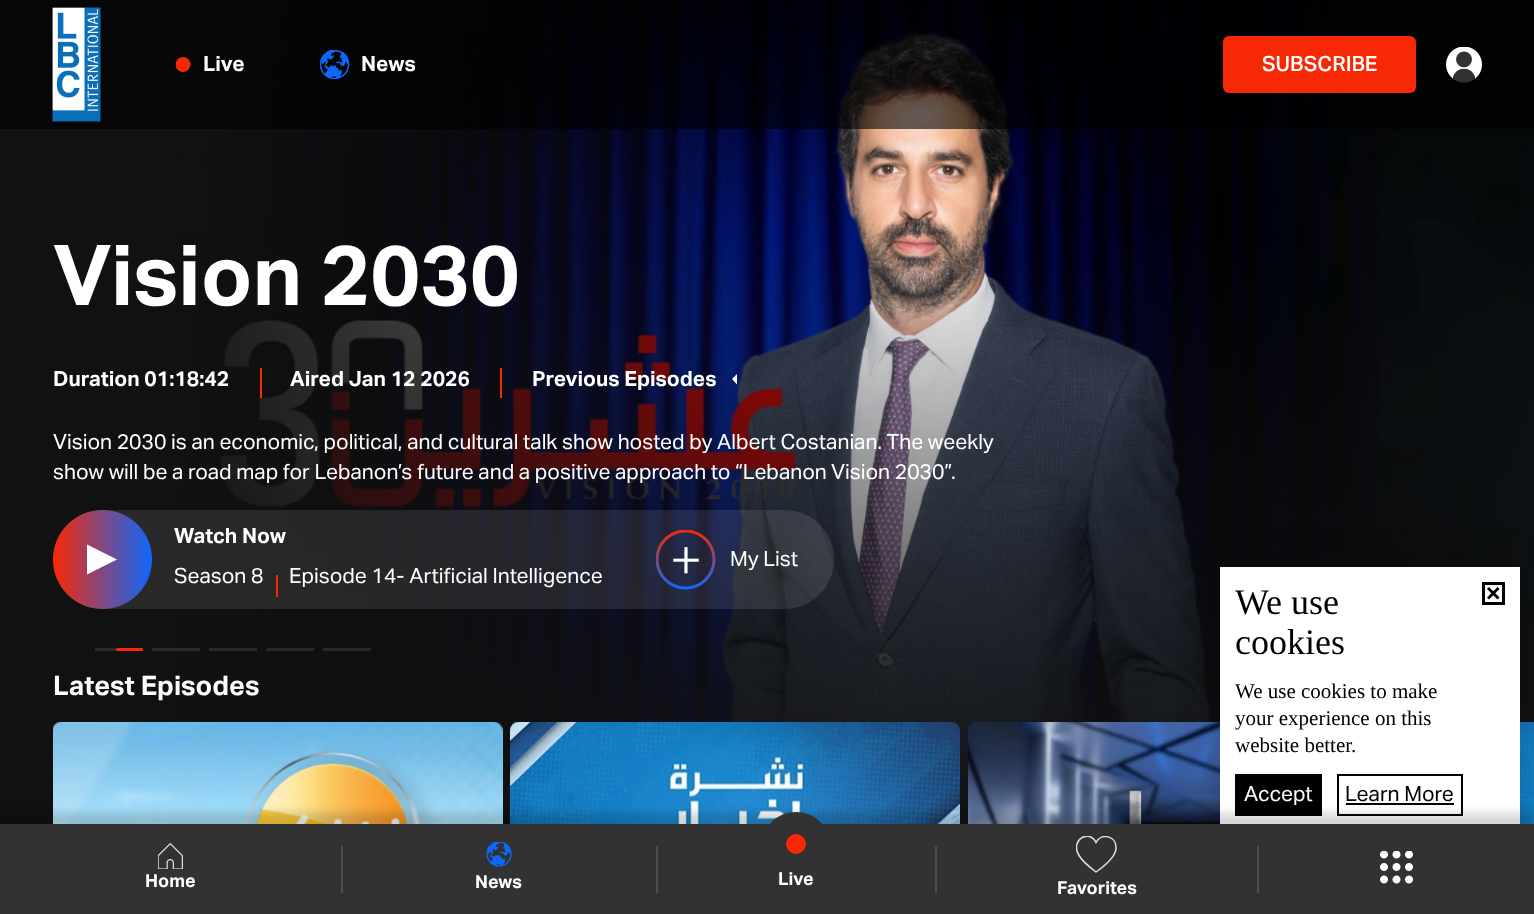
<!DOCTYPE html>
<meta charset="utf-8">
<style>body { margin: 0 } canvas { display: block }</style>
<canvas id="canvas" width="1534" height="914"></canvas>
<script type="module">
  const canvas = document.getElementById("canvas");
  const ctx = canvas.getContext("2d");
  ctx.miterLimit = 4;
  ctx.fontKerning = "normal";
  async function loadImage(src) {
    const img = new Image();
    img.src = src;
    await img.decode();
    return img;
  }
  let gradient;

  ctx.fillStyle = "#ffffff";
  ctx.fillRect(0, 0, 1534, 914);
  ctx.drawImage(await loadImage("img7.png"), 127, 0, 1407, 824);
  gradient = ctx.createLinearGradient(767, 229, 767, 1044);
  gradient.addColorStop(0, "rgba(17, 17, 17, 0)");
  gradient.addColorStop(0.28, "rgba(17, 17, 17, 0.4)");
  gradient.addColorStop(0.74, "#111111");
  gradient.addColorStop(1, "#111111");
  ctx.fillStyle = gradient;
  ctx.fillRect(127, 241, 1407, 583);
  gradient = ctx.createLinearGradient(768, 522, 0, 522);
  gradient.addColorStop(0, "rgba(17, 17, 17, 0)");
  gradient.addColorStop(0.28, "rgba(17, 17, 17, 0.4)");
  gradient.addColorStop(0.84, "#111111");
  gradient.addColorStop(1, "#111111");
  ctx.fillStyle = gradient;
  ctx.fillRect(0, 0, 756, 824);
  ctx.fillStyle = "rgba(0, 0, 0, 0.6)";
  ctx.fillRect(0, 0, 1534, 129);
  ctx.drawImage(await loadImage("img1.png"), 52, 7, 49, 115);
  ctx.save();
  ctx.beginPath();
  ctx.rect(176, 57, 15, 15);
  ctx.clip();
  ctx.fillStyle = "#f72805";
  ctx.beginPath();
  ctx.arc(183, 64.5, 7.5, 0, Math.PI * 2);
  ctx.fill();
  ctx.restore();
  ctx.font = "bold 21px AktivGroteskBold";
  ctx.fillStyle = "#ffffff";
  ctx.fillText("Live", 203, 71);
  ctx.drawImage(await loadImage("img2.png"), 320, 50, 30, 30);
  ctx.fillText("News", 361, 71);
  ctx.fillStyle = "#f72805";
  ctx.beginPath();
  ctx.roundRect(1223, 36, 193, 57, 6);
  ctx.fill();
  ctx.font = "500 21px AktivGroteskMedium";
  ctx.fillStyle = "#ffffff";
  ctx.fillText("SUBSCRIBE", 1262, 71);
  ctx.drawImage(await loadImage("img3.png"), 1446, 47, 36, 36);
  ctx.drawImage(await loadImage("img9.png"), 53, 722, 450, 102);
  ctx.drawImage(await loadImage("img10.png"), 510, 722, 450, 102);
  ctx.drawImage(await loadImage("img11.png"), 968, 722, 252, 102);
  ctx.drawImage(await loadImage("img12.png"), 1520, 722, 14, 102);
  ctx.fillStyle = "rgba(0, 0, 0, 0.2)";
  ctx.filter = "blur(18px)";
  ctx.beginPath();
  ctx.rect(1215, 563, 309, 273);
  ctx.fill();
  ctx.filter = "none";
  ctx.fillStyle = "#ffffff";
  ctx.fillRect(1220, 567, 300, 257);
  ctx.fillStyle = "#000000";
  ctx.fillRect(1235, 774, 87, 42);
  ctx.strokeStyle = "#000000";
  ctx.lineWidth = 2;
  ctx.strokeRect(1338, 775, 124, 40);
  ctx.fillRect(1346, 803, 108, 2);
  ctx.fillStyle = "rgba(0, 0, 0, 0.16)";
  ctx.filter = "blur(4.5px)";
  ctx.beginPath();
  ctx.rect(0, 813, 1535, 92);
  ctx.fill();
  ctx.filter = "none";
  ctx.fillStyle = "#323232";
  ctx.fillRect(0, 824, 1534, 90);
  ctx.drawImage(await loadImage("img4.png"), 158, 843, 25, 26);
  ctx.font = "bold 18px AktivGroteskBold";
  ctx.fillStyle = "#ffffff";
  ctx.fillText("Home", 145, 887);
  ctx.fillStyle = "#4d4d4d";
  ctx.fillRect(341, 846, 2, 47);
  ctx.drawImage(await loadImage("img5.png"), 486, 842, 26, 25);
  ctx.fillStyle = "#ffffff";
  ctx.fillText("News", 475, 888);
  ctx.fillStyle = "#4d4d4d";
  ctx.fillRect(656, 846, 2, 47);
  ctx.fillStyle = "#323232";
  ctx.beginPath();
  ctx.roundRect(762, 812, 68, 67, 33.5);
  ctx.fill();
  ctx.fillStyle = "#f72805";
  ctx.beginPath();
  ctx.arc(796, 844, 10, 0, Math.PI * 2);
  ctx.fill();
  ctx.fillStyle = "#ffffff";
  ctx.fillText("Live", 778, 885);
  ctx.fillStyle = "#4d4d4d";
  ctx.fillRect(935, 846, 2, 47);
  ctx.save();
  ctx.beginPath();
  ctx.rect(1076, 836, 42, 37);
  ctx.clip();
  ctx.beginPath();
  ctx.moveTo(1116, 847);
  ctx.bezierCurveTo(1116, 836, 1101, 832.5, 1096, 842.5);
  ctx.bezierCurveTo(1089.5, 828.5, 1069.5, 840, 1079, 855.5);
  ctx.bezierCurveTo(1083, 862, 1090, 867.5, 1096, 872);
  ctx.bezierCurveTo(1103, 867, 1117, 856.5, 1116, 847);
  ctx.strokeStyle = "#dddddd";
  ctx.lineWidth = 1.5;
  ctx.stroke();
  ctx.restore();
  ctx.fillStyle = "#ffffff";
  ctx.fillText("Favorites", 1057, 894);
  ctx.fillStyle = "#4d4d4d";
  ctx.fillRect(1257, 846, 2, 47);
  ctx.drawImage(await loadImage("img6.png"), 1380, 851, 33, 33);
  ctx.font = "bold 84px AktivGroteskBold";
  ctx.fillStyle = "#ffffff";
  ctx.fillText("Vision 2030", 53, 305);
  ctx.font = "bold 21px AktivGroteskBold";
  ctx.fillText("Duration 01:18:42", 53, 386);
  ctx.fillStyle = "#f72805";
  ctx.fillRect(260, 368, 2, 30);
  ctx.fillStyle = "#ffffff";
  ctx.fillText("Aired Jan 12 2026", 290, 386);
  ctx.fillStyle = "#f72805";
  ctx.fillRect(500, 368, 2, 30);
  ctx.fillStyle = "#ffffff";
  ctx.fillText("Previous Episodes", 532, 386);
  ctx.beginPath();
  ctx.moveTo(737, 374);
  ctx.lineTo(737, 384.5);
  ctx.lineTo(732, 379);
  ctx.closePath();
  ctx.fill();
  ctx.font = "21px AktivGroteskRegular";
  ctx.fillText("Vision 2030 is an economic, political, and cultural talk show hosted by Albert Costanian. The weekly", 53, 449);
  ctx.fillText("show will be a road map for Lebanon’s future and a positive approach to “Lebanon Vision 2030”.", 53, 479);
  ctx.fillStyle = "rgba(255, 255, 255, 0.1)";
  ctx.beginPath();
  ctx.roundRect(53, 510, 781, 99, 49.5);
  ctx.fill();
  gradient = ctx.createLinearGradient(53, 560, 152, 560);
  gradient.addColorStop(0, "#f72805");
  gradient.addColorStop(1, "#0e68fc");
  ctx.fillStyle = gradient;
  ctx.beginPath();
  ctx.arc(102.5, 559.5, 49.5, 0, Math.PI * 2);
  ctx.fill();
  ctx.fillStyle = "#ffffff";
  ctx.beginPath();
  ctx.moveTo(87, 574.5);
  ctx.lineTo(87, 544.5);
  ctx.lineTo(117, 559.5);
  ctx.closePath();
  ctx.fill();
  ctx.font = "bold 21px AktivGroteskBold";
  ctx.fillText("Watch Now", 174, 543);
  ctx.font = "21px AktivGroteskRegular";
  ctx.fillText("Season 8", 174, 583);
  ctx.fillStyle = "#f72805";
  ctx.fillRect(276, 575, 2, 22);
  ctx.fillStyle = "#ffffff";
  ctx.fillText("Episode 14- Artificial Intelligence", 289, 583);
  ctx.drawImage(await loadImage("img8.png"), 656, 530, 60, 60);
  ctx.fillText("My List", 730, 566);
  ctx.fillStyle = "#292929";
  ctx.fillRect(95, 648, 48, 3);
  ctx.fillStyle = "#f72805";
  ctx.beginPath();
  ctx.roundRect(116, 648, 27, 3, 1.5);
  ctx.fill();
  ctx.fillStyle = "#292929";
  ctx.fillRect(152, 648, 48, 3);
  ctx.fillStyle = "#282828";
  ctx.fillRect(209, 648, 48, 3);
  ctx.fillRect(266, 648, 48, 3);
  ctx.fillRect(323, 648, 48, 3);
  ctx.font = "bold 27px AktivGroteskBold";
  ctx.fillStyle = "#ffffff";
  ctx.fillText("Latest Episodes", 53, 695);
  ctx.font = "36px Liberation Serif";
  ctx.fillStyle = "#000000";
  ctx.fillText("We use", 1235, 614);
  ctx.fillText("cookies", 1235, 654);
  ctx.lineWidth = 3;
  ctx.strokeRect(1483.5, 583.5, 20, 20);
  ctx.beginPath();
  ctx.moveTo(1487, 589);
  ctx.lineTo(1489, 587);
  ctx.lineTo(1499.5, 597.5);
  ctx.lineTo(1497.5, 599.5);
  ctx.closePath();
  ctx.fill();
  ctx.beginPath();
  ctx.moveTo(1497.5, 587);
  ctx.lineTo(1499.5, 589);
  ctx.lineTo(1489, 599.5);
  ctx.lineTo(1487, 597.5);
  ctx.closePath();
  ctx.fill();
  ctx.font = "21px Liberation Serif";
  ctx.fillText("We use cookies to make", 1235, 698);
  ctx.fillText("your experience on this", 1235, 725);
  ctx.fillText("website better.", 1235, 752);
  ctx.font = "21px AktivGroteskRegular";
  ctx.fillStyle = "#ffffff";
  ctx.fillText("Accept", 1244, 801);
  ctx.fillStyle = "#000000";
  ctx.fillText("Learn More", 1345, 801);
</script>
